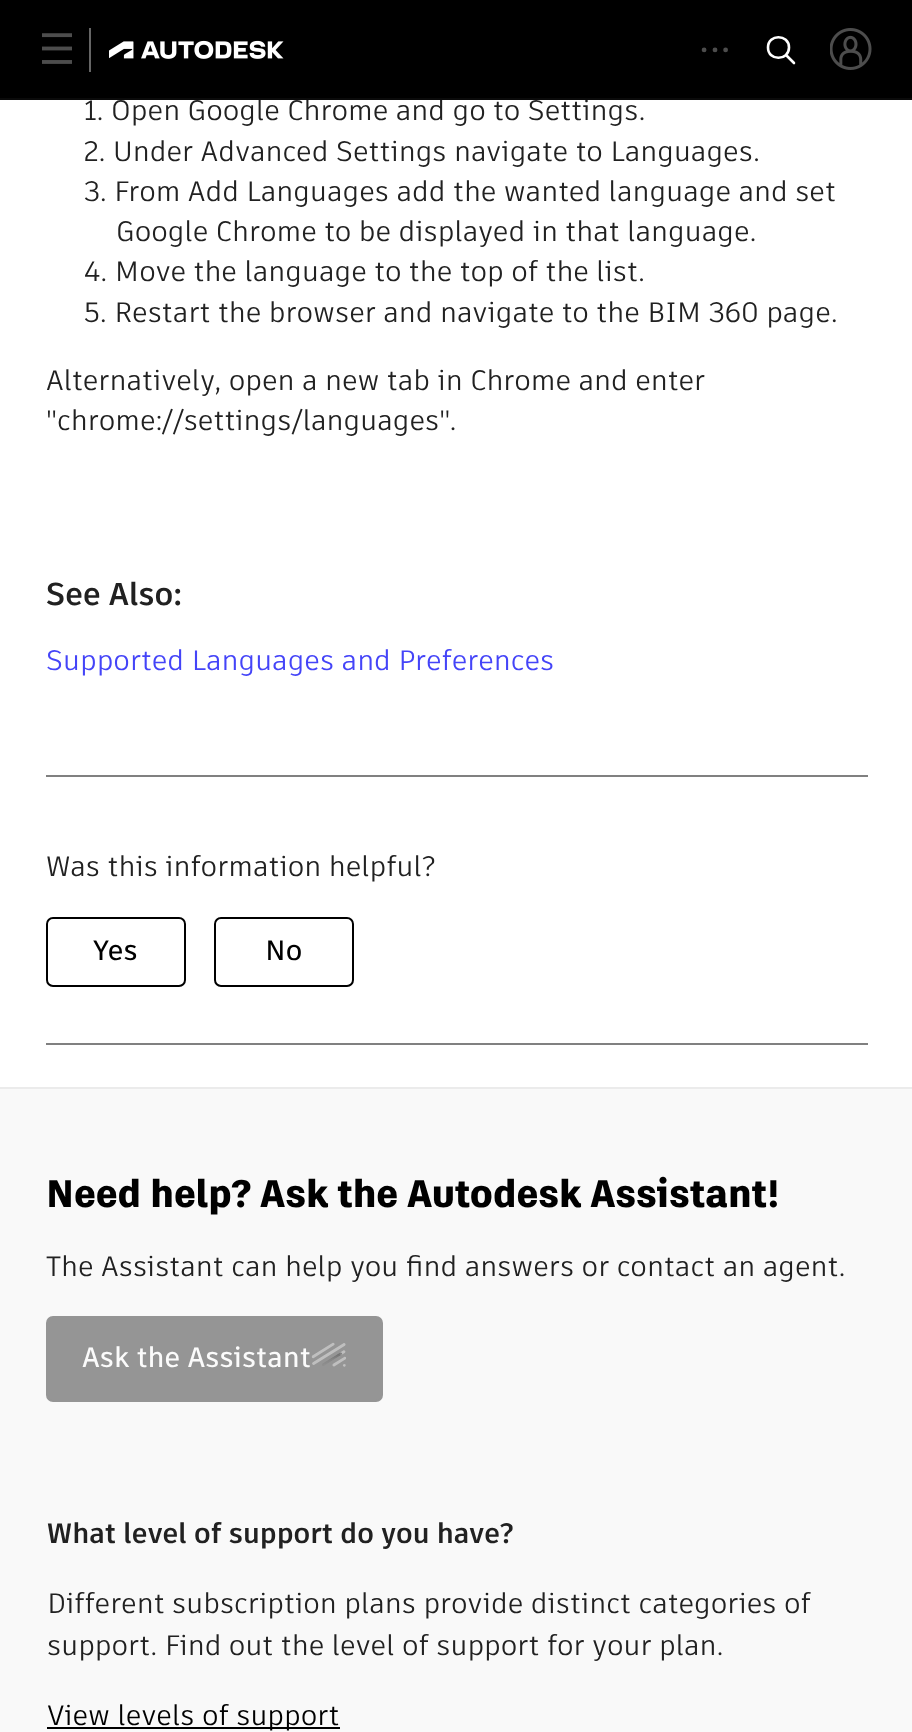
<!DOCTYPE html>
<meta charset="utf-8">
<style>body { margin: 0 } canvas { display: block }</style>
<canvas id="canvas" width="912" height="1732"></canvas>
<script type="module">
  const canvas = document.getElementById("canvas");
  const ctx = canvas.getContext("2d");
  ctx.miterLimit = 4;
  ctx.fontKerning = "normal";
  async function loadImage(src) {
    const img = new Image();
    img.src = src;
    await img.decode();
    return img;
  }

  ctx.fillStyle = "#ffffff";
  ctx.fillRect(0, 0, 912, 1732);
  ctx.fillStyle = "#000000";
  ctx.fillRect(0, 0, 912, 98);
  ctx.font = "28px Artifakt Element";
  ctx.fillStyle = "#212121";
  ctx.fillText("1. Open Google Chrome and go to Settings.", 84, 120);
  ctx.fillStyle = "#0a0a0a";
  ctx.fillRect(0, 98, 912, 2);
  ctx.drawImage(await loadImage("img1.png"), 42, 33, 30, 31);
  ctx.fillStyle = "#666666";
  ctx.fillRect(89, 28, 2, 44);
  ctx.drawImage(await loadImage("img2.png"), 109, 40, 175, 19);
  ctx.fillStyle = "#4d4d4d";
  ctx.beginPath();
  ctx.arc(704.1, 49.9, 2.4, 0, Math.PI * 2);
  ctx.fill();
  ctx.beginPath();
  ctx.arc(715, 49.9, 2.4, 0, Math.PI * 2);
  ctx.fill();
  ctx.beginPath();
  ctx.arc(725.6, 49.9, 2.4, 0, Math.PI * 2);
  ctx.fill();
  ctx.beginPath();
  ctx.moveTo(786, 55);
  ctx.lineTo(794, 63);
  ctx.moveTo(789, 47.5);
  ctx.bezierCurveTo(789, 61, 768, 61.5, 768, 47.5);
  ctx.bezierCurveTo(768, 33.5, 789, 34, 789, 47.5);
  ctx.closePath();
  ctx.strokeStyle = "#ffffff";
  ctx.lineWidth = 2.6;
  ctx.lineCap = "round";
  ctx.stroke();
  ctx.drawImage(await loadImage("img3.png"), 830, 28, 42, 42);
  ctx.fillStyle = "#212121";
  ctx.fillText("2. Under Advanced Settings navigate to Languages.", 84, 161);
  ctx.fillText("3. From Add Languages add the wanted language and set", 84, 201);
  ctx.fillText("Google Chrome to be displayed in that language.", 116, 241);
  ctx.fillText("4. Move the language to the top of the list.", 84, 281);
  ctx.fillText("5. Restart the browser and navigate to the BIM 360 page.", 84, 322);
  ctx.fillText("Alternatively, open a new tab in Chrome and enter", 46, 390);
  ctx.fillText("\"chrome://settings/languages\".", 46, 430);
  ctx.font = "bold 31.5px Artifakt Element";
  ctx.fillText("See Also:", 46, 605);
  ctx.font = "28px Artifakt Element";
  ctx.fillStyle = "#4444f8";
  ctx.fillText("Supported Languages and Preferences", 46, 670);
  ctx.fillStyle = "#808080";
  ctx.fillRect(46, 775, 822, 2);
  ctx.fillStyle = "#212121";
  ctx.fillText("Was this information helpful?", 46, 876);
  ctx.beginPath();
  ctx.roundRect(47, 918, 138, 68, 6);
  ctx.strokeStyle = "#000000";
  ctx.lineWidth = 2;
  ctx.stroke();
  ctx.font = "600 28px Artifakt Element";
  ctx.fillStyle = "#000000";
  ctx.fillText("Yes", 93, 960);
  ctx.beginPath();
  ctx.roundRect(215, 918, 138, 68, 6);
  ctx.stroke();
  ctx.fillText("No", 265, 960);
  ctx.fillStyle = "#808080";
  ctx.fillRect(46, 1043, 822, 2);
  ctx.fillStyle = "#ebebeb";
  ctx.fillRect(0, 1087, 912, 2);
  ctx.fillStyle = "#f9f9f9";
  ctx.fillRect(0, 1089, 912, 643);
  ctx.font = "800 38.1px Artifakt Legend";
  ctx.fillStyle = "#000000";
  ctx.fillText("Need help? Ask the Autodesk Assistant!", 46, 1207);
  ctx.font = "28px Artifakt Element";
  ctx.fillStyle = "#212121";
  ctx.fillText("The Assistant can help you find answers or contact an agent.", 46, 1276);
  ctx.fillStyle = "#959595";
  ctx.beginPath();
  ctx.roundRect(47, 1317, 335, 84, 6);
  ctx.fill();
  ctx.strokeStyle = "#959595";
  ctx.stroke();
  ctx.font = "600 28px Artifakt Element";
  ctx.fillStyle = "#fbfbfb";
  ctx.fillText("Ask the Assistant", 82, 1367);
  ctx.drawImage(await loadImage("img4.png"), 311, 1342, 35, 25);
  ctx.font = "bold 28px Artifakt Element";
  ctx.fillStyle = "#212121";
  ctx.fillText("What level of support do you have?", 47, 1543);
  ctx.font = "28px Artifakt Element";
  ctx.fillText("Different subscription plans provide distinct categories of", 47, 1613);
  ctx.fillText("support. Find out the level of support for your plan.", 47, 1655);
  ctx.fillStyle = "#000000";
  ctx.fillRect(47, 1727, 293, 2);
  ctx.fillText("View levels of support", 47, 1725);
</script>
